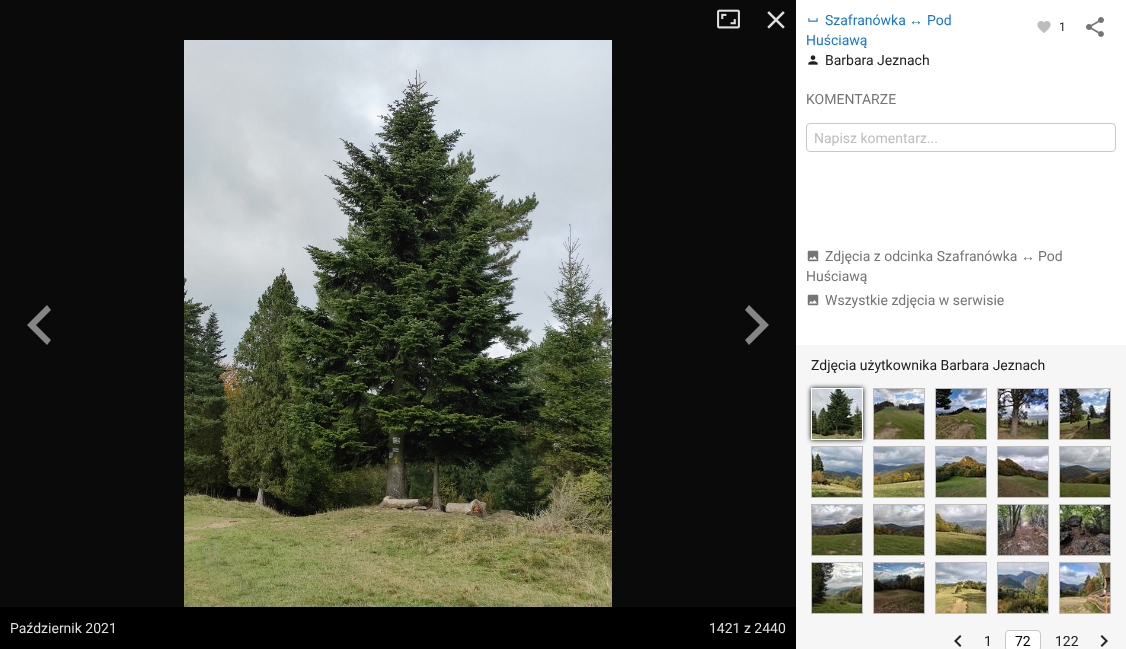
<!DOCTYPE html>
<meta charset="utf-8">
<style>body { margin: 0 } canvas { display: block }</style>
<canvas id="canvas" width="1126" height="649"></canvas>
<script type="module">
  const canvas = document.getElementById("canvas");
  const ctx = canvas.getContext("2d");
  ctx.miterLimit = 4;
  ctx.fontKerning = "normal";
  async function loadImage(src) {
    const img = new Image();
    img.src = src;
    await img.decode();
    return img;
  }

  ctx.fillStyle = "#0a0a0a";
  ctx.fillRect(0, 0, 1126, 649);
  ctx.drawImage(await loadImage("img1.png"), 717, 9, 23, 20);
  ctx.drawImage(await loadImage("img2.png"), 767, 11, 18, 18);
  ctx.fillStyle = "#858585";
  ctx.beginPath();
  ctx.moveTo(51, 310);
  ctx.lineTo(47, 305);
  ctx.lineTo(27, 325);
  ctx.lineTo(47, 345);
  ctx.lineTo(51, 340);
  ctx.lineTo(36, 325);
  ctx.closePath();
  ctx.fill();
  ctx.drawImage(await loadImage("img3.png"), 184, 40, 428, 567);
  ctx.beginPath();
  ctx.moveTo(749, 305);
  ctx.lineTo(745, 310);
  ctx.lineTo(760, 325);
  ctx.lineTo(745, 340);
  ctx.lineTo(749, 345);
  ctx.lineTo(769, 325);
  ctx.closePath();
  ctx.fill();
  ctx.fillStyle = "#000000";
  ctx.fillRect(0, 607, 796, 42);
  ctx.font = "14px Roboto";
  ctx.fillStyle = "#dedede";
  ctx.fillText("Październik 2021", 10, 633);
  ctx.fillText("1421 z 2440", 709, 633);
  ctx.fillStyle = "#ffffff";
  ctx.fillRect(796, 0, 330, 345);
  ctx.drawImage(await loadImage("img4.png"), 808, 18, 10, 4);
  ctx.fillStyle = "#1976d2";
  ctx.fillText("Szafranówka", 825, 25);
  ctx.fillText("Pod", 927, 25);
  ctx.font = "14px Liberation Sans";
  ctx.fillText("↔", 909, 25);
  ctx.font = "14px Roboto";
  ctx.fillText("Huściawą", 806, 45);
  ctx.drawImage(await loadImage("img5.png"), 808, 55, 10, 10);
  ctx.fillStyle = "#212121";
  ctx.fillText("Barbara Jeznach", 825, 65);
  ctx.drawImage(await loadImage("img6.png"), 1037, 21, 14, 12);
  ctx.font = "12px Roboto";
  ctx.fillText("1", 1059, 31);
  ctx.drawImage(await loadImage("img7.png"), 1086, 17, 18, 20);
  ctx.font = "14px Roboto";
  ctx.fillStyle = "#757575";
  ctx.fillText("KOMENTARZE", 806, 104);
  ctx.beginPath();
  ctx.roundRect(806.5, 123.5, 309, 28, 3.5);
  ctx.strokeStyle = "#c8c8c8";
  ctx.stroke();
  ctx.fillStyle = "#bdbdbd";
  ctx.fillText("Napisz komentarz...", 814, 143);
  ctx.drawImage(await loadImage("img8.png"), 807, 250, 12, 12);
  ctx.fillStyle = "#757575";
  ctx.fillText("Zdjęcia z odcinka Szafranówka", 825, 261);
  ctx.font = "14px Liberation Sans";
  ctx.fillText("↔", 1021, 261);
  ctx.font = "14px Roboto";
  ctx.fillText("Pod", 1038, 261);
  ctx.fillText("Huściawą", 806, 281);
  ctx.drawImage(await loadImage("img8.png"), 807, 294, 12, 12);
  ctx.fillText("Wszystkie zdjęcia w serwisie", 825, 305);
  ctx.fillStyle = "#f6f6f6";
  ctx.fillRect(796, 345, 330, 304);
  ctx.fillStyle = "#212121";
  ctx.fillText("Zdjęcia użytkownika Barbara Jeznach", 811, 370);
  ctx.fillStyle = "#000000";
  ctx.filter = "blur(2.5px)";
  ctx.beginPath();
  ctx.rect(811, 388, 52, 52);
  ctx.fill();
  ctx.filter = "none";
  ctx.strokeStyle = "#ffffff";
  ctx.strokeRect(811.5, 388.5, 51, 51);
  ctx.drawImage(await loadImage("img9.png"), 812, 389, 50, 50);
  ctx.strokeStyle = "#bdbdbd";
  ctx.strokeRect(873.5, 388.5, 51, 51);
  ctx.drawImage(await loadImage("img10.png"), 874, 389, 50, 50);
  ctx.strokeRect(935.5, 388.5, 51, 51);
  ctx.drawImage(await loadImage("img11.png"), 936, 389, 50, 50);
  ctx.strokeRect(997.5, 388.5, 51, 51);
  ctx.drawImage(await loadImage("img12.png"), 998, 389, 50, 50);
  ctx.strokeRect(1059.5, 388.5, 51, 51);
  ctx.drawImage(await loadImage("img13.png"), 1060, 389, 50, 50);
  ctx.strokeRect(811.5, 446.5, 51, 51);
  ctx.drawImage(await loadImage("img14.png"), 812, 447, 50, 50);
  ctx.strokeRect(873.5, 446.5, 51, 51);
  ctx.drawImage(await loadImage("img15.png"), 874, 447, 50, 50);
  ctx.strokeRect(935.5, 446.5, 51, 51);
  ctx.drawImage(await loadImage("img16.png"), 936, 447, 50, 50);
  ctx.strokeRect(997.5, 446.5, 51, 51);
  ctx.drawImage(await loadImage("img17.png"), 998, 447, 50, 50);
  ctx.strokeRect(1059.5, 446.5, 51, 51);
  ctx.drawImage(await loadImage("img18.png"), 1060, 447, 50, 50);
  ctx.strokeRect(811.5, 504.5, 51, 51);
  ctx.drawImage(await loadImage("img19.png"), 812, 505, 50, 50);
  ctx.strokeRect(873.5, 504.5, 51, 51);
  ctx.drawImage(await loadImage("img20.png"), 874, 505, 50, 50);
  ctx.strokeRect(935.5, 504.5, 51, 51);
  ctx.drawImage(await loadImage("img21.png"), 936, 505, 50, 50);
  ctx.strokeRect(997.5, 504.5, 51, 51);
  ctx.drawImage(await loadImage("img22.png"), 998, 505, 50, 50);
  ctx.strokeRect(1059.5, 504.5, 51, 51);
  ctx.drawImage(await loadImage("img23.png"), 1060, 505, 50, 50);
  ctx.strokeRect(811.5, 562.5, 51, 51);
  ctx.drawImage(await loadImage("img24.png"), 812, 563, 50, 50);
  ctx.strokeRect(873.5, 562.5, 51, 51);
  ctx.drawImage(await loadImage("img25.png"), 874, 563, 50, 50);
  ctx.strokeRect(935.5, 562.5, 51, 51);
  ctx.drawImage(await loadImage("img26.png"), 936, 563, 50, 50);
  ctx.strokeRect(997.5, 562.5, 51, 51);
  ctx.drawImage(await loadImage("img27.png"), 998, 563, 50, 50);
  ctx.strokeRect(1059.5, 562.5, 51, 51);
  ctx.drawImage(await loadImage("img28.png"), 1060, 563, 50, 50);
  ctx.drawImage(await loadImage("img29.png"), 954, 635, 8, 12);
  ctx.fillStyle = "#212121";
  ctx.fillText("1", 984, 646);
  ctx.fillStyle = "#ffffff";
  ctx.beginPath();
  ctx.roundRect(1005.5, 630.5, 35, 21, 3.5);
  ctx.fill();
  ctx.strokeStyle = "#c8c8c8";
  ctx.stroke();
  ctx.fillStyle = "#000000";
  ctx.fillText("72", 1015, 646);
  ctx.fillStyle = "#212121";
  ctx.fillText("122", 1055, 646);
  ctx.drawImage(await loadImage("img30.png"), 1100, 635, 8, 12);
</script>
